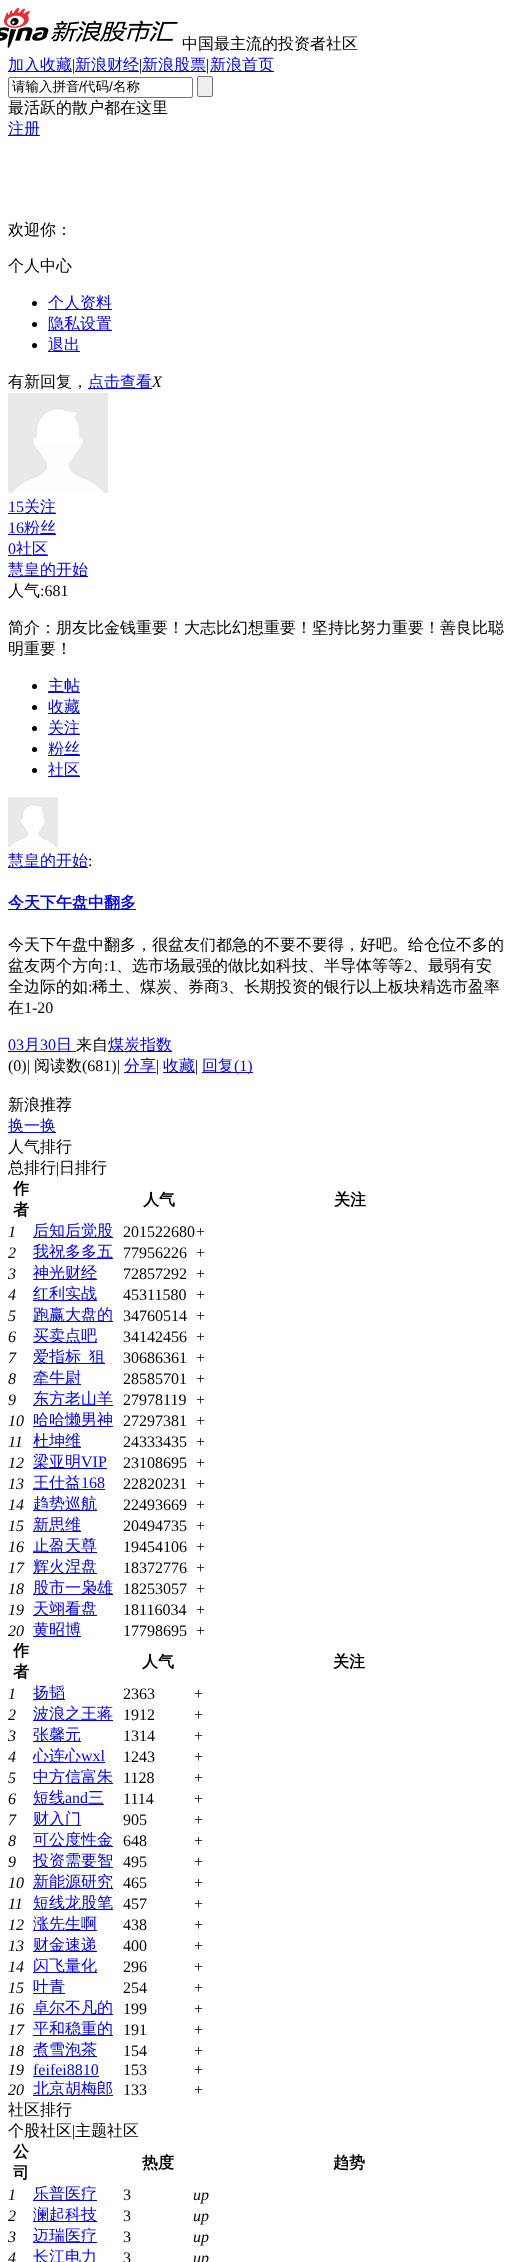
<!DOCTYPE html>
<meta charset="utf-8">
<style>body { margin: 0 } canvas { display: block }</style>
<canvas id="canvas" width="513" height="2262"></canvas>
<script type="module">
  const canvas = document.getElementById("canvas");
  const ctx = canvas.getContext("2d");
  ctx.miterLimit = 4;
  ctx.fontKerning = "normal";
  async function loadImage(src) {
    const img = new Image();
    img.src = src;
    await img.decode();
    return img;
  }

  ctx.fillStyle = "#ffffff";
  ctx.fillRect(0, 0, 513, 2262);
  ctx.drawImage(await loadImage("img1.png"), 0, 8, 178, 40);
  ctx.font = "500 16px WenQuanYi Zen Hei";
  ctx.fillStyle = "#000000";
  ctx.fillText("中国最主流的投资者社区", 182, 49);
  ctx.fillStyle = "#0000ee";
  ctx.fillRect(8, 71, 64, 1);
  ctx.fillText("加入收藏", 8, 70);
  ctx.font = "16px Liberation Serif";
  ctx.fillStyle = "#000000";
  ctx.fillText("|", 72, 70);
  ctx.fillStyle = "#0000ee";
  ctx.fillRect(75, 71, 64, 1);
  ctx.font = "500 16px WenQuanYi Zen Hei";
  ctx.fillText("新浪财经", 75, 70);
  ctx.font = "16px Liberation Serif";
  ctx.fillStyle = "#000000";
  ctx.fillText("|", 139, 70);
  ctx.fillStyle = "#0000ee";
  ctx.fillRect(142, 71, 64, 1);
  ctx.font = "500 16px WenQuanYi Zen Hei";
  ctx.fillText("新浪股票", 142, 70);
  ctx.font = "16px Liberation Serif";
  ctx.fillStyle = "#000000";
  ctx.fillText("|", 206, 70);
  ctx.fillStyle = "#0000ee";
  ctx.fillRect(210, 71, 64, 1);
  ctx.font = "500 16px WenQuanYi Zen Hei";
  ctx.fillText("新浪首页", 210, 70);
  ctx.beginPath();
  ctx.roundRect(8.5, 77.5, 184, 20, 1.5);
  ctx.strokeStyle = "#767676";
  ctx.stroke();
  ctx.font = "500 13.5px WenQuanYi Zen Hei";
  ctx.fillStyle = "#000000";
  ctx.fillText("请输入拼音", 12, 91);
  ctx.font = "13.5px Liberation Sans";
  ctx.fillText("/", 79, 91);
  ctx.font = "500 13.5px WenQuanYi Zen Hei";
  ctx.fillText("代码 名称", 82, 91);
  ctx.font = "13.5px Liberation Sans";
  ctx.fillText("/", 109, 91);
  ctx.fillStyle = "#efefef";
  ctx.beginPath();
  ctx.roundRect(197.5, 76.5, 15, 20, 1.5);
  ctx.fill();
  ctx.stroke();
  ctx.font = "500 16px WenQuanYi Zen Hei";
  ctx.fillStyle = "#000000";
  ctx.fillText("最活跃的散户都在这里", 8, 113);
  ctx.fillStyle = "#0000ee";
  ctx.fillRect(8, 135, 32, 1);
  ctx.fillText("注册", 8, 134);
  ctx.fillStyle = "#000000";
  ctx.fillText("欢迎你：", 8, 235);
  ctx.fillText("个人中心", 8, 271);
  ctx.beginPath();
  ctx.arc(34.5, 303.5, 2.5, 0, Math.PI * 2);
  ctx.fill();
  ctx.fillStyle = "#0000ee";
  ctx.fillRect(48, 309, 64, 1);
  ctx.fillText("个人资料", 48, 308);
  ctx.fillStyle = "#000000";
  ctx.beginPath();
  ctx.arc(34.5, 324.5, 2.5, 0, Math.PI * 2);
  ctx.fill();
  ctx.fillStyle = "#0000ee";
  ctx.fillRect(48, 330, 64, 1);
  ctx.fillText("隐私设置", 48, 329);
  ctx.fillStyle = "#000000";
  ctx.beginPath();
  ctx.arc(34.5, 345.5, 2.5, 0, Math.PI * 2);
  ctx.fill();
  ctx.fillStyle = "#0000ee";
  ctx.fillRect(48, 351, 32, 1);
  ctx.fillText("退出", 48, 350);
  ctx.fillStyle = "#000000";
  ctx.fillText("有新回复，", 8, 387);
  ctx.fillStyle = "#0000ee";
  ctx.fillRect(88, 388, 64, 1);
  ctx.fillText("点击查看", 88, 387);
  ctx.font = "italic 16px Liberation Serif";
  ctx.fillStyle = "#000000";
  ctx.fillText("X", 152, 387);
  ctx.drawImage(await loadImage("img2.png"), 8, 393, 100, 100);
  ctx.font = "16px Liberation Serif";
  ctx.fillStyle = "#0000ee";
  ctx.fillText("15", 8, 512);
  ctx.fillRect(8, 513, 48, 1);
  ctx.font = "500 16px WenQuanYi Zen Hei";
  ctx.fillText("关注", 24, 512);
  ctx.font = "16px Liberation Serif";
  ctx.fillText("16", 8, 533);
  ctx.fillRect(8, 534, 48, 1);
  ctx.font = "500 16px WenQuanYi Zen Hei";
  ctx.fillText("粉丝", 24, 533);
  ctx.font = "16px Liberation Serif";
  ctx.fillText("0", 8, 554);
  ctx.fillRect(8, 555, 40, 1);
  ctx.font = "500 16px WenQuanYi Zen Hei";
  ctx.fillText("社区", 16, 554);
  ctx.fillRect(8, 576, 80, 1);
  ctx.fillText("慧皇的开始", 8, 575);
  ctx.fillStyle = "#000000";
  ctx.fillText("人气", 8, 596);
  ctx.font = "16px Liberation Serif";
  ctx.fillText(":681", 40, 596);
  ctx.font = "500 16px WenQuanYi Zen Hei";
  ctx.fillText("简介：朋友比金钱重要！大志比幻想重要！坚持比努力重要！善良比聪", 8, 633);
  ctx.fillText("明重要！", 8, 654);
  ctx.beginPath();
  ctx.arc(34.5, 686.5, 2.5, 0, Math.PI * 2);
  ctx.fill();
  ctx.fillStyle = "#0000ee";
  ctx.fillRect(48, 692, 32, 1);
  ctx.fillText("主帖", 48, 691);
  ctx.fillStyle = "#000000";
  ctx.beginPath();
  ctx.arc(34.5, 707.5, 2.5, 0, Math.PI * 2);
  ctx.fill();
  ctx.fillStyle = "#0000ee";
  ctx.fillRect(48, 713, 32, 1);
  ctx.fillText("收藏", 48, 712);
  ctx.fillStyle = "#000000";
  ctx.beginPath();
  ctx.arc(34.5, 728.5, 2.5, 0, Math.PI * 2);
  ctx.fill();
  ctx.fillStyle = "#0000ee";
  ctx.fillRect(48, 734, 32, 1);
  ctx.fillText("关注", 48, 733);
  ctx.fillStyle = "#000000";
  ctx.beginPath();
  ctx.arc(34.5, 749.5, 2.5, 0, Math.PI * 2);
  ctx.fill();
  ctx.fillStyle = "#0000ee";
  ctx.fillRect(48, 755, 32, 1);
  ctx.fillText("粉丝", 48, 754);
  ctx.fillStyle = "#000000";
  ctx.beginPath();
  ctx.arc(34.5, 770.5, 2.5, 0, Math.PI * 2);
  ctx.fill();
  ctx.fillStyle = "#0000ee";
  ctx.fillRect(48, 776, 32, 1);
  ctx.fillText("社区", 48, 775);
  ctx.drawImage(await loadImage("img3.png"), 8, 797, 50, 50);
  ctx.fillRect(8, 867, 80, 1);
  ctx.fillText("慧皇的开始", 8, 866);
  ctx.font = "16px Liberation Serif";
  ctx.fillStyle = "#000000";
  ctx.fillText(":", 88, 866);
  ctx.fillStyle = "#0000ee";
  ctx.fillRect(8, 909, 128, 1);
  ctx.font = "bold 16px WenQuanYi Zen Hei";
  ctx.fillText("今天下午盘中翻多", 8, 908);
  ctx.font = "500 16px WenQuanYi Zen Hei";
  ctx.fillStyle = "#000000";
  ctx.fillText("今天下午盘中翻多，很盆友们都急的不要不要得，好吧。给仓位不多的", 8, 950);
  ctx.fillText("盆友两个方向", 8, 971);
  ctx.font = "16px Liberation Serif";
  ctx.fillText(":1", 104, 971);
  ctx.font = "500 16px WenQuanYi Zen Hei";
  ctx.fillText("、选市场最强的做比如科技、半导体等等", 116, 971);
  ctx.font = "16px Liberation Serif";
  ctx.fillText("2", 404, 971);
  ctx.font = "500 16px WenQuanYi Zen Hei";
  ctx.fillText("、最弱有安", 412, 971);
  ctx.fillText("全边际的如", 8, 992);
  ctx.font = "16px Liberation Serif";
  ctx.fillText(":", 88, 992);
  ctx.font = "500 16px WenQuanYi Zen Hei";
  ctx.fillText("稀土、煤炭、券商", 92, 992);
  ctx.font = "16px Liberation Serif";
  ctx.fillText("3", 220, 992);
  ctx.font = "500 16px WenQuanYi Zen Hei";
  ctx.fillText("、长期投资的银行以上板块精选市盈率", 228, 992);
  ctx.fillText("在", 8, 1013);
  ctx.font = "16px Liberation Serif";
  ctx.fillText("1-20", 24, 1013);
  ctx.fillStyle = "#0000ee";
  ctx.fillText("03", 8, 1050);
  ctx.fillRect(8, 1051, 68, 1);
  ctx.font = "500 16px WenQuanYi Zen Hei";
  ctx.fillText("月", 24, 1050);
  ctx.font = "16px Liberation Serif";
  ctx.fillText("30", 40, 1050);
  ctx.font = "500 16px WenQuanYi Zen Hei";
  ctx.fillText("日", 56, 1050);
  ctx.fillStyle = "#000000";
  ctx.fillText("来自", 76, 1050);
  ctx.fillStyle = "#0000ee";
  ctx.fillRect(108, 1051, 64, 1);
  ctx.fillText("煤炭指数", 108, 1050);
  ctx.font = "16px Liberation Serif";
  ctx.fillStyle = "#000000";
  ctx.fillText("(0)|", 8, 1071);
  ctx.font = "500 16px WenQuanYi Zen Hei";
  ctx.fillText("阅读数", 34, 1071);
  ctx.font = "16px Liberation Serif";
  ctx.fillText("(681)|", 82, 1071);
  ctx.fillStyle = "#0000ee";
  ctx.fillRect(124, 1072, 32, 1);
  ctx.font = "500 16px WenQuanYi Zen Hei";
  ctx.fillText("分享", 124, 1071);
  ctx.font = "16px Liberation Serif";
  ctx.fillStyle = "#000000";
  ctx.fillText("|", 156, 1071);
  ctx.fillStyle = "#0000ee";
  ctx.fillRect(163, 1072, 32, 1);
  ctx.font = "500 16px WenQuanYi Zen Hei";
  ctx.fillText("收藏", 163, 1071);
  ctx.font = "16px Liberation Serif";
  ctx.fillStyle = "#000000";
  ctx.fillText("|", 195, 1071);
  ctx.fillStyle = "#0000ee";
  ctx.fillRect(202, 1072, 51, 1);
  ctx.font = "500 16px WenQuanYi Zen Hei";
  ctx.fillText("回复", 202, 1071);
  ctx.font = "16px Liberation Serif";
  ctx.fillText("(1)", 234, 1071);
  ctx.font = "500 16px WenQuanYi Zen Hei";
  ctx.fillStyle = "#000000";
  ctx.fillText("新浪推荐", 8, 1110);
  ctx.fillStyle = "#0000ee";
  ctx.fillRect(8, 1132, 48, 1);
  ctx.fillText("换一换", 8, 1131);
  ctx.fillStyle = "#000000";
  ctx.fillText("人气排行", 8, 1152);
  ctx.fillText("总排行", 8, 1173);
  ctx.font = "16px Liberation Serif";
  ctx.fillText("|", 56, 1173);
  ctx.font = "500 16px WenQuanYi Zen Hei";
  ctx.fillText("日排行", 59, 1173);
  ctx.font = "bold 16px WenQuanYi Zen Hei";
  ctx.fillText("作", 13, 1194);
  ctx.fillText("者", 13, 1215);
  ctx.fillText("人气", 143, 1205);
  ctx.fillText("关注", 334, 1205);
  ctx.font = "italic 16px Liberation Serif";
  ctx.fillText("1", 8, 1237);
  ctx.fillStyle = "#0000ee";
  ctx.fillRect(33, 1237, 80, 1);
  ctx.font = "500 16px WenQuanYi Zen Hei";
  ctx.fillText("后知后觉股", 33, 1236);
  ctx.font = "16px Liberation Serif";
  ctx.fillStyle = "#000000";
  ctx.fillText("201522680", 123, 1237);
  ctx.font = "italic 16px Liberation Serif";
  ctx.fillText("+", 195, 1237);
  ctx.fillText("2", 8, 1258);
  ctx.fillStyle = "#0000ee";
  ctx.fillRect(33, 1258, 80, 1);
  ctx.font = "500 16px WenQuanYi Zen Hei";
  ctx.fillText("我祝多多五", 33, 1257);
  ctx.font = "16px Liberation Serif";
  ctx.fillStyle = "#000000";
  ctx.fillText("77956226", 123, 1258);
  ctx.font = "italic 16px Liberation Serif";
  ctx.fillText("+", 195, 1258);
  ctx.fillText("3", 8, 1279);
  ctx.fillStyle = "#0000ee";
  ctx.fillRect(33, 1279, 64, 1);
  ctx.font = "500 16px WenQuanYi Zen Hei";
  ctx.fillText("神光财经", 33, 1278);
  ctx.font = "16px Liberation Serif";
  ctx.fillStyle = "#000000";
  ctx.fillText("72857292", 123, 1279);
  ctx.font = "italic 16px Liberation Serif";
  ctx.fillText("+", 195, 1279);
  ctx.fillText("4", 8, 1300);
  ctx.fillStyle = "#0000ee";
  ctx.fillRect(33, 1300, 64, 1);
  ctx.font = "500 16px WenQuanYi Zen Hei";
  ctx.fillText("红利实战", 33, 1299);
  ctx.font = "16px Liberation Serif";
  ctx.fillStyle = "#000000";
  ctx.fillText("45311580", 123, 1300);
  ctx.font = "italic 16px Liberation Serif";
  ctx.fillText("+", 195, 1300);
  ctx.fillText("5", 8, 1321);
  ctx.fillStyle = "#0000ee";
  ctx.fillRect(33, 1321, 80, 1);
  ctx.font = "500 16px WenQuanYi Zen Hei";
  ctx.fillText("跑赢大盘的", 33, 1320);
  ctx.font = "16px Liberation Serif";
  ctx.fillStyle = "#000000";
  ctx.fillText("34760514", 123, 1321);
  ctx.font = "italic 16px Liberation Serif";
  ctx.fillText("+", 195, 1321);
  ctx.fillText("6", 8, 1342);
  ctx.fillStyle = "#0000ee";
  ctx.fillRect(33, 1342, 64, 1);
  ctx.font = "500 16px WenQuanYi Zen Hei";
  ctx.fillText("买卖点吧", 33, 1341);
  ctx.font = "16px Liberation Serif";
  ctx.fillStyle = "#000000";
  ctx.fillText("34142456", 123, 1342);
  ctx.font = "italic 16px Liberation Serif";
  ctx.fillText("+", 195, 1342);
  ctx.fillText("7", 8, 1363);
  ctx.fillStyle = "#0000ee";
  ctx.fillRect(33, 1363, 72, 1);
  ctx.font = "500 16px WenQuanYi Zen Hei";
  ctx.fillText("爱指标", 33, 1362);
  ctx.fillText("狙", 89, 1362);
  ctx.font = "16px Liberation Serif";
  ctx.fillStyle = "#000000";
  ctx.fillText("30686361", 123, 1363);
  ctx.font = "italic 16px Liberation Serif";
  ctx.fillText("+", 195, 1363);
  ctx.fillText("8", 8, 1384);
  ctx.fillStyle = "#0000ee";
  ctx.fillRect(33, 1384, 48, 1);
  ctx.font = "500 16px WenQuanYi Zen Hei";
  ctx.fillText("牵牛尉", 33, 1383);
  ctx.font = "16px Liberation Serif";
  ctx.fillStyle = "#000000";
  ctx.fillText("28585701", 123, 1384);
  ctx.font = "italic 16px Liberation Serif";
  ctx.fillText("+", 195, 1384);
  ctx.fillText("9", 8, 1405);
  ctx.fillStyle = "#0000ee";
  ctx.fillRect(33, 1405, 80, 1);
  ctx.font = "500 16px WenQuanYi Zen Hei";
  ctx.fillText("东方老山羊", 33, 1404);
  ctx.font = "16px Liberation Serif";
  ctx.fillStyle = "#000000";
  ctx.fillText("27978119", 123, 1405);
  ctx.font = "italic 16px Liberation Serif";
  ctx.fillText("+", 195, 1405);
  ctx.fillText("10", 8, 1426);
  ctx.fillStyle = "#0000ee";
  ctx.fillRect(33, 1426, 80, 1);
  ctx.font = "500 16px WenQuanYi Zen Hei";
  ctx.fillText("哈哈懒男神", 33, 1425);
  ctx.font = "16px Liberation Serif";
  ctx.fillStyle = "#000000";
  ctx.fillText("27297381", 123, 1426);
  ctx.font = "italic 16px Liberation Serif";
  ctx.fillText("+", 195, 1426);
  ctx.fillText("11", 8, 1447);
  ctx.fillStyle = "#0000ee";
  ctx.fillRect(33, 1447, 48, 1);
  ctx.font = "500 16px WenQuanYi Zen Hei";
  ctx.fillText("杜坤维", 33, 1446);
  ctx.font = "16px Liberation Serif";
  ctx.fillStyle = "#000000";
  ctx.fillText("24333435", 123, 1447);
  ctx.font = "italic 16px Liberation Serif";
  ctx.fillText("+", 195, 1447);
  ctx.fillText("12", 8, 1468);
  ctx.fillStyle = "#0000ee";
  ctx.fillRect(33, 1468, 74, 1);
  ctx.font = "500 16px WenQuanYi Zen Hei";
  ctx.fillText("梁亚明", 33, 1467);
  ctx.font = "16px Liberation Serif";
  ctx.fillText("VIP", 81, 1467);
  ctx.fillStyle = "#000000";
  ctx.fillText("23108695", 123, 1468);
  ctx.font = "italic 16px Liberation Serif";
  ctx.fillText("+", 195, 1468);
  ctx.fillText("13", 8, 1489);
  ctx.fillStyle = "#0000ee";
  ctx.fillRect(33, 1489, 72, 1);
  ctx.font = "500 16px WenQuanYi Zen Hei";
  ctx.fillText("王仕益", 33, 1488);
  ctx.font = "16px Liberation Serif";
  ctx.fillText("168", 81, 1488);
  ctx.fillStyle = "#000000";
  ctx.fillText("22820231", 123, 1489);
  ctx.font = "italic 16px Liberation Serif";
  ctx.fillText("+", 195, 1489);
  ctx.fillText("14", 8, 1510);
  ctx.fillStyle = "#0000ee";
  ctx.fillRect(33, 1510, 64, 1);
  ctx.font = "500 16px WenQuanYi Zen Hei";
  ctx.fillText("趋势巡航", 33, 1509);
  ctx.font = "16px Liberation Serif";
  ctx.fillStyle = "#000000";
  ctx.fillText("22493669", 123, 1510);
  ctx.font = "italic 16px Liberation Serif";
  ctx.fillText("+", 195, 1510);
  ctx.fillText("15", 8, 1531);
  ctx.fillStyle = "#0000ee";
  ctx.fillRect(33, 1531, 48, 1);
  ctx.font = "500 16px WenQuanYi Zen Hei";
  ctx.fillText("新思维", 33, 1530);
  ctx.font = "16px Liberation Serif";
  ctx.fillStyle = "#000000";
  ctx.fillText("20494735", 123, 1531);
  ctx.font = "italic 16px Liberation Serif";
  ctx.fillText("+", 195, 1531);
  ctx.fillText("16", 8, 1552);
  ctx.fillStyle = "#0000ee";
  ctx.fillRect(33, 1552, 64, 1);
  ctx.font = "500 16px WenQuanYi Zen Hei";
  ctx.fillText("止盈天尊", 33, 1551);
  ctx.font = "16px Liberation Serif";
  ctx.fillStyle = "#000000";
  ctx.fillText("19454106", 123, 1552);
  ctx.font = "italic 16px Liberation Serif";
  ctx.fillText("+", 195, 1552);
  ctx.fillText("17", 8, 1573);
  ctx.fillStyle = "#0000ee";
  ctx.fillRect(33, 1573, 64, 1);
  ctx.font = "500 16px WenQuanYi Zen Hei";
  ctx.fillText("辉火涅盘", 33, 1572);
  ctx.font = "16px Liberation Serif";
  ctx.fillStyle = "#000000";
  ctx.fillText("18372776", 123, 1573);
  ctx.font = "italic 16px Liberation Serif";
  ctx.fillText("+", 195, 1573);
  ctx.fillText("18", 8, 1594);
  ctx.fillStyle = "#0000ee";
  ctx.fillRect(33, 1594, 80, 1);
  ctx.font = "500 16px WenQuanYi Zen Hei";
  ctx.fillText("股市一枭雄", 33, 1593);
  ctx.font = "16px Liberation Serif";
  ctx.fillStyle = "#000000";
  ctx.fillText("18253057", 123, 1594);
  ctx.font = "italic 16px Liberation Serif";
  ctx.fillText("+", 195, 1594);
  ctx.fillText("19", 8, 1615);
  ctx.fillStyle = "#0000ee";
  ctx.fillRect(33, 1615, 64, 1);
  ctx.font = "500 16px WenQuanYi Zen Hei";
  ctx.fillText("天翊看盘", 33, 1614);
  ctx.font = "16px Liberation Serif";
  ctx.fillStyle = "#000000";
  ctx.fillText("18116034", 123, 1615);
  ctx.font = "italic 16px Liberation Serif";
  ctx.fillText("+", 195, 1615);
  ctx.fillText("20", 8, 1636);
  ctx.fillStyle = "#0000ee";
  ctx.fillRect(33, 1636, 48, 1);
  ctx.font = "500 16px WenQuanYi Zen Hei";
  ctx.fillText("黄昭博", 33, 1635);
  ctx.font = "16px Liberation Serif";
  ctx.fillStyle = "#000000";
  ctx.fillText("17798695", 123, 1636);
  ctx.font = "italic 16px Liberation Serif";
  ctx.fillText("+", 195, 1636);
  ctx.font = "bold 16px WenQuanYi Zen Hei";
  ctx.fillText("作", 13, 1656);
  ctx.fillText("者", 13, 1677);
  ctx.fillText("人气", 142, 1667);
  ctx.fillText("关注", 333, 1667);
  ctx.font = "italic 16px Liberation Serif";
  ctx.fillText("1", 8, 1699);
  ctx.fillStyle = "#0000ee";
  ctx.fillRect(33, 1699, 32, 1);
  ctx.font = "500 16px WenQuanYi Zen Hei";
  ctx.fillText("扬韬", 33, 1698);
  ctx.font = "16px Liberation Serif";
  ctx.fillStyle = "#000000";
  ctx.fillText("2363", 123, 1699);
  ctx.font = "italic 16px Liberation Serif";
  ctx.fillText("+", 193, 1699);
  ctx.fillText("2", 8, 1720);
  ctx.fillStyle = "#0000ee";
  ctx.fillRect(33, 1720, 80, 1);
  ctx.font = "500 16px WenQuanYi Zen Hei";
  ctx.fillText("波浪之王蒋", 33, 1719);
  ctx.font = "16px Liberation Serif";
  ctx.fillStyle = "#000000";
  ctx.fillText("1912", 123, 1720);
  ctx.font = "italic 16px Liberation Serif";
  ctx.fillText("+", 193, 1720);
  ctx.fillText("3", 8, 1741);
  ctx.fillStyle = "#0000ee";
  ctx.fillRect(33, 1741, 48, 1);
  ctx.font = "500 16px WenQuanYi Zen Hei";
  ctx.fillText("张馨元", 33, 1740);
  ctx.font = "16px Liberation Serif";
  ctx.fillStyle = "#000000";
  ctx.fillText("1314", 123, 1741);
  ctx.font = "italic 16px Liberation Serif";
  ctx.fillText("+", 193, 1741);
  ctx.fillText("4", 8, 1762);
  ctx.fillStyle = "#0000ee";
  ctx.fillRect(33, 1762, 72, 1);
  ctx.font = "500 16px WenQuanYi Zen Hei";
  ctx.fillText("心连心", 33, 1761);
  ctx.font = "16px Liberation Serif";
  ctx.fillText("wxl", 81, 1761);
  ctx.fillStyle = "#000000";
  ctx.fillText("1243", 123, 1762);
  ctx.font = "italic 16px Liberation Serif";
  ctx.fillText("+", 193, 1762);
  ctx.fillText("5", 8, 1783);
  ctx.fillStyle = "#0000ee";
  ctx.fillRect(33, 1783, 80, 1);
  ctx.font = "500 16px WenQuanYi Zen Hei";
  ctx.fillText("中方信富朱", 33, 1782);
  ctx.font = "16px Liberation Serif";
  ctx.fillStyle = "#000000";
  ctx.fillText("1128", 123, 1783);
  ctx.font = "italic 16px Liberation Serif";
  ctx.fillText("+", 193, 1783);
  ctx.fillText("6", 8, 1804);
  ctx.fillStyle = "#0000ee";
  ctx.fillRect(33, 1804, 71, 1);
  ctx.font = "500 16px WenQuanYi Zen Hei";
  ctx.fillText("短线", 33, 1803);
  ctx.font = "16px Liberation Serif";
  ctx.fillText("and", 65, 1803);
  ctx.font = "500 16px WenQuanYi Zen Hei";
  ctx.fillText("三", 88, 1803);
  ctx.font = "16px Liberation Serif";
  ctx.fillStyle = "#000000";
  ctx.fillText("1114", 123, 1804);
  ctx.font = "italic 16px Liberation Serif";
  ctx.fillText("+", 193, 1804);
  ctx.fillText("7", 8, 1825);
  ctx.fillStyle = "#0000ee";
  ctx.fillRect(33, 1825, 48, 1);
  ctx.font = "500 16px WenQuanYi Zen Hei";
  ctx.fillText("财入门", 33, 1824);
  ctx.font = "16px Liberation Serif";
  ctx.fillStyle = "#000000";
  ctx.fillText("905", 123, 1825);
  ctx.font = "italic 16px Liberation Serif";
  ctx.fillText("+", 193, 1825);
  ctx.fillText("8", 8, 1846);
  ctx.fillStyle = "#0000ee";
  ctx.fillRect(33, 1846, 80, 1);
  ctx.font = "500 16px WenQuanYi Zen Hei";
  ctx.fillText("可公度性金", 33, 1845);
  ctx.font = "16px Liberation Serif";
  ctx.fillStyle = "#000000";
  ctx.fillText("648", 123, 1846);
  ctx.font = "italic 16px Liberation Serif";
  ctx.fillText("+", 193, 1846);
  ctx.fillText("9", 8, 1867);
  ctx.fillStyle = "#0000ee";
  ctx.fillRect(33, 1867, 80, 1);
  ctx.font = "500 16px WenQuanYi Zen Hei";
  ctx.fillText("投资需要智", 33, 1866);
  ctx.font = "16px Liberation Serif";
  ctx.fillStyle = "#000000";
  ctx.fillText("495", 123, 1867);
  ctx.font = "italic 16px Liberation Serif";
  ctx.fillText("+", 193, 1867);
  ctx.fillText("10", 8, 1888);
  ctx.fillStyle = "#0000ee";
  ctx.fillRect(33, 1888, 80, 1);
  ctx.font = "500 16px WenQuanYi Zen Hei";
  ctx.fillText("新能源研究", 33, 1887);
  ctx.font = "16px Liberation Serif";
  ctx.fillStyle = "#000000";
  ctx.fillText("465", 123, 1888);
  ctx.font = "italic 16px Liberation Serif";
  ctx.fillText("+", 193, 1888);
  ctx.fillText("11", 8, 1909);
  ctx.fillStyle = "#0000ee";
  ctx.fillRect(33, 1909, 80, 1);
  ctx.font = "500 16px WenQuanYi Zen Hei";
  ctx.fillText("短线龙股笔", 33, 1908);
  ctx.font = "16px Liberation Serif";
  ctx.fillStyle = "#000000";
  ctx.fillText("457", 123, 1909);
  ctx.font = "italic 16px Liberation Serif";
  ctx.fillText("+", 193, 1909);
  ctx.fillText("12", 8, 1930);
  ctx.fillStyle = "#0000ee";
  ctx.fillRect(33, 1930, 64, 1);
  ctx.font = "500 16px WenQuanYi Zen Hei";
  ctx.fillText("涨先生啊", 33, 1929);
  ctx.font = "16px Liberation Serif";
  ctx.fillStyle = "#000000";
  ctx.fillText("438", 123, 1930);
  ctx.font = "italic 16px Liberation Serif";
  ctx.fillText("+", 193, 1930);
  ctx.fillText("13", 8, 1951);
  ctx.fillStyle = "#0000ee";
  ctx.fillRect(33, 1951, 64, 1);
  ctx.font = "500 16px WenQuanYi Zen Hei";
  ctx.fillText("财金速递", 33, 1950);
  ctx.font = "16px Liberation Serif";
  ctx.fillStyle = "#000000";
  ctx.fillText("400", 123, 1951);
  ctx.font = "italic 16px Liberation Serif";
  ctx.fillText("+", 193, 1951);
  ctx.fillText("14", 8, 1972);
  ctx.fillStyle = "#0000ee";
  ctx.fillRect(33, 1972, 64, 1);
  ctx.font = "500 16px WenQuanYi Zen Hei";
  ctx.fillText("闪飞量化", 33, 1971);
  ctx.font = "16px Liberation Serif";
  ctx.fillStyle = "#000000";
  ctx.fillText("296", 123, 1972);
  ctx.font = "italic 16px Liberation Serif";
  ctx.fillText("+", 193, 1972);
  ctx.fillText("15", 8, 1993);
  ctx.fillStyle = "#0000ee";
  ctx.fillRect(33, 1993, 32, 1);
  ctx.font = "500 16px WenQuanYi Zen Hei";
  ctx.fillText("叶青", 33, 1992);
  ctx.font = "16px Liberation Serif";
  ctx.fillStyle = "#000000";
  ctx.fillText("254", 123, 1993);
  ctx.font = "italic 16px Liberation Serif";
  ctx.fillText("+", 193, 1993);
  ctx.fillText("16", 8, 2014);
  ctx.fillStyle = "#0000ee";
  ctx.fillRect(33, 2014, 80, 1);
  ctx.font = "500 16px WenQuanYi Zen Hei";
  ctx.fillText("卓尔不凡的", 33, 2013);
  ctx.font = "16px Liberation Serif";
  ctx.fillStyle = "#000000";
  ctx.fillText("199", 123, 2014);
  ctx.font = "italic 16px Liberation Serif";
  ctx.fillText("+", 193, 2014);
  ctx.fillText("17", 8, 2035);
  ctx.fillStyle = "#0000ee";
  ctx.fillRect(33, 2035, 80, 1);
  ctx.font = "500 16px WenQuanYi Zen Hei";
  ctx.fillText("平和稳重的", 33, 2034);
  ctx.font = "16px Liberation Serif";
  ctx.fillStyle = "#000000";
  ctx.fillText("191", 123, 2035);
  ctx.font = "italic 16px Liberation Serif";
  ctx.fillText("+", 193, 2035);
  ctx.fillText("18", 8, 2056);
  ctx.fillStyle = "#0000ee";
  ctx.fillRect(33, 2056, 64, 1);
  ctx.font = "500 16px WenQuanYi Zen Hei";
  ctx.fillText("煮雪泡茶", 33, 2055);
  ctx.font = "16px Liberation Serif";
  ctx.fillStyle = "#000000";
  ctx.fillText("154", 123, 2056);
  ctx.font = "italic 16px Liberation Serif";
  ctx.fillText("+", 193, 2056);
  ctx.fillText("19", 8, 2075);
  ctx.font = "16px Liberation Serif";
  ctx.fillStyle = "#0000ee";
  ctx.fillText("feifei8810", 33, 2075);
  ctx.fillRect(33, 2076, 66, 1);
  ctx.fillStyle = "#000000";
  ctx.fillText("153", 123, 2075);
  ctx.font = "italic 16px Liberation Serif";
  ctx.fillText("+", 193, 2075);
  ctx.fillText("20", 8, 2095);
  ctx.fillStyle = "#0000ee";
  ctx.fillRect(33, 2095, 80, 1);
  ctx.font = "500 16px WenQuanYi Zen Hei";
  ctx.fillText("北京胡梅郎", 33, 2094);
  ctx.font = "16px Liberation Serif";
  ctx.fillStyle = "#000000";
  ctx.fillText("133", 123, 2095);
  ctx.font = "italic 16px Liberation Serif";
  ctx.fillText("+", 193, 2095);
  ctx.font = "500 16px WenQuanYi Zen Hei";
  ctx.fillText("社区排行", 8, 2115);
  ctx.fillText("个股社区", 8, 2136);
  ctx.font = "16px Liberation Serif";
  ctx.fillText("|", 72, 2136);
  ctx.font = "500 16px WenQuanYi Zen Hei";
  ctx.fillText("主题社区", 75, 2136);
  ctx.font = "bold 16px WenQuanYi Zen Hei";
  ctx.fillText("公", 13, 2157);
  ctx.fillText("司", 13, 2178);
  ctx.fillText("热度", 142, 2168);
  ctx.fillText("趋势", 333, 2168);
  ctx.font = "italic 16px Liberation Serif";
  ctx.fillText("1", 8, 2200);
  ctx.fillStyle = "#0000ee";
  ctx.fillRect(33, 2200, 64, 1);
  ctx.font = "500 16px WenQuanYi Zen Hei";
  ctx.fillText("乐普医疗", 33, 2199);
  ctx.font = "16px Liberation Serif";
  ctx.fillStyle = "#000000";
  ctx.fillText("3", 123, 2200);
  ctx.font = "italic 16px Liberation Serif";
  ctx.fillText("up", 193, 2200);
  ctx.fillText("2", 8, 2221);
  ctx.fillStyle = "#0000ee";
  ctx.fillRect(33, 2221, 64, 1);
  ctx.font = "500 16px WenQuanYi Zen Hei";
  ctx.fillText("澜起科技", 33, 2220);
  ctx.font = "16px Liberation Serif";
  ctx.fillStyle = "#000000";
  ctx.fillText("3", 123, 2221);
  ctx.font = "italic 16px Liberation Serif";
  ctx.fillText("up", 193, 2221);
  ctx.fillText("3", 8, 2242);
  ctx.fillStyle = "#0000ee";
  ctx.fillRect(33, 2242, 64, 1);
  ctx.font = "500 16px WenQuanYi Zen Hei";
  ctx.fillText("迈瑞医疗", 33, 2241);
  ctx.font = "16px Liberation Serif";
  ctx.fillStyle = "#000000";
  ctx.fillText("3", 123, 2242);
  ctx.font = "italic 16px Liberation Serif";
  ctx.fillText("up", 193, 2242);
  ctx.fillText("4", 8, 2263);
  ctx.font = "500 16px WenQuanYi Zen Hei";
  ctx.fillStyle = "#0000ee";
  ctx.fillText("长江电力", 33, 2262);
  ctx.font = "16px Liberation Serif";
  ctx.fillStyle = "#000000";
  ctx.fillText("3", 123, 2263);
  ctx.font = "italic 16px Liberation Serif";
  ctx.fillText("up", 193, 2263);
</script>
